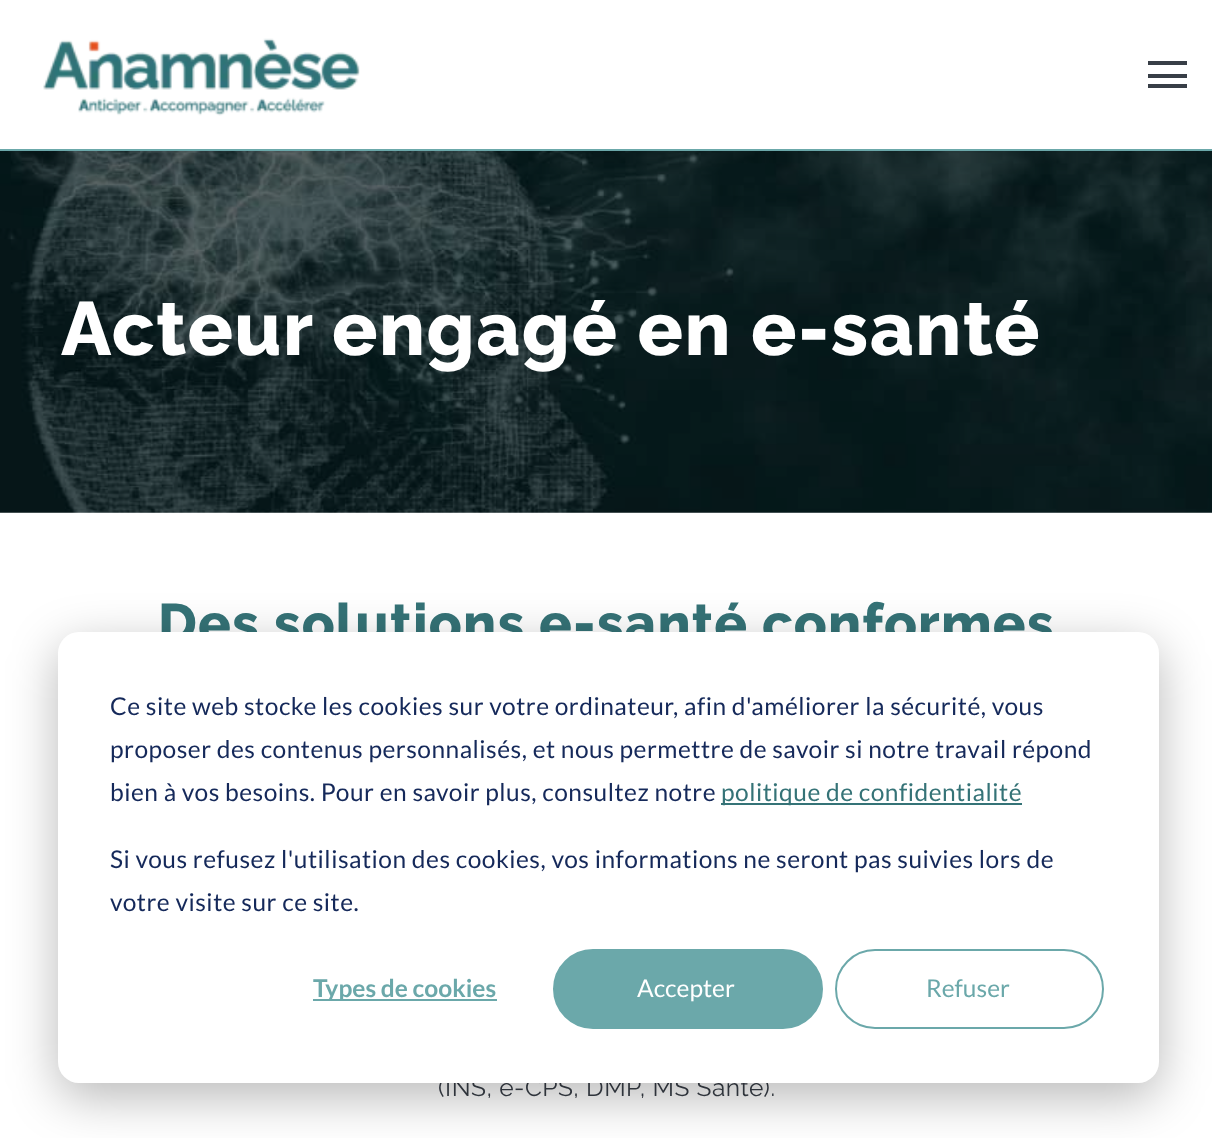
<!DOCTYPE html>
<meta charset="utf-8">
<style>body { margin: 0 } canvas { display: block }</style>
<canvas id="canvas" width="1212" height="1138"></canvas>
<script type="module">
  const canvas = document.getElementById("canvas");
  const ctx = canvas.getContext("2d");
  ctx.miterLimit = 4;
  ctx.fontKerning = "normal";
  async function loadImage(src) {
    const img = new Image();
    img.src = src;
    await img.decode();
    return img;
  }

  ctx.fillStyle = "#ffffff";
  ctx.fillRect(0, 0, 1212, 1138);
  ctx.drawImage(await loadImage("img2.png"), 0, 151, 1212, 362);
  ctx.fillStyle = "rgba(0, 0, 0, 0.1)";
  ctx.filter = "blur(35px)";
  ctx.beginPath();
  ctx.rect(0, 0, 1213, 151);
  ctx.fill();
  ctx.filter = "none";
  ctx.fillStyle = "#ffffff";
  ctx.fillRect(0, 0, 1212, 149);
  ctx.fillStyle = "#6ba8aa";
  ctx.fillRect(0, 149, 1212, 2);
  ctx.drawImage(await loadImage("img1.png"), 43, 38, 317, 78);
  ctx.fillStyle = "#383e47";
  ctx.fillRect(1148, 61, 39, 4);
  ctx.fillRect(1148, 84, 39, 4);
  ctx.fillRect(1148, 74, 39, 4);
  ctx.letterSpacing = "1.5px";
  ctx.font = "800 75.25px Raleway";
  ctx.fillStyle = "#ffffff";
  ctx.fillText("Acteur engagé en e-santé", 61, 355);
  ctx.letterSpacing = "1.1px";
  ctx.font = "800 54.25px Raleway";
  ctx.fillStyle = "#357377";
  ctx.fillText("Des solutions e-santé conformes", 158, 642);
  ctx.letterSpacing = "0.5px";
  ctx.font = "24.5px Raleway";
  ctx.fillStyle = "#383e47";
  ctx.fillText("(INS, e-CPS, DMP, MS Santé).", 438, 1096);
  ctx.fillStyle = "rgba(0, 0, 0, 0.28)";
  ctx.filter = "blur(24.5px)";
  ctx.beginPath();
  ctx.roundRect(58, 646, 1101, 451, 21);
  ctx.fill();
  ctx.filter = "none";
  ctx.fillStyle = "#ffffff";
  ctx.beginPath();
  ctx.roundRect(58, 632, 1101, 451, 21);
  ctx.fill();
  ctx.font = "24.5px Lato";
  ctx.fillStyle = "#15295a";
  ctx.fillText("Ce site web stocke les cookies sur votre ordinateur, afin d'améliorer la sécurité, vous", 110, 715);
  ctx.fillText("proposer des contenus personnalisés, et nous permettre de savoir si notre travail répond", 110, 758);
  ctx.fillText("bien à vos besoins. Pour en savoir plus, consultez notre", 110, 801);
  ctx.fillStyle = "#357377";
  ctx.fillRect(721, 803, 301, 2);
  ctx.fillText("politique de confidentialité", 721, 801);
  ctx.fillStyle = "#15295a";
  ctx.fillText("Si vous refusez l'utilisation des cookies, vos informations ne seront pas suivies lors de", 110, 868);
  ctx.fillText("votre visite sur ce site.", 110, 911);
  ctx.fillStyle = "#6ba8aa";
  ctx.fillRect(313, 999, 184, 2);
  ctx.letterSpacing = "0px";
  ctx.font = "bold 24.5px Lato";
  ctx.fillText("Types de cookies", 313, 997);
  ctx.beginPath();
  ctx.roundRect(554, 950, 268, 78, 39);
  ctx.fill();
  ctx.strokeStyle = "#6ba8aa";
  ctx.lineWidth = 2;
  ctx.stroke();
  ctx.font = "24.5px Lato";
  ctx.fillStyle = "#ffffff";
  ctx.fillText("Accepter", 637, 997);
  ctx.beginPath();
  ctx.roundRect(836, 950, 267, 78, 39);
  ctx.stroke();
  ctx.fillStyle = "#6ba8aa";
  ctx.fillText("Refuser", 926, 997);
</script>
